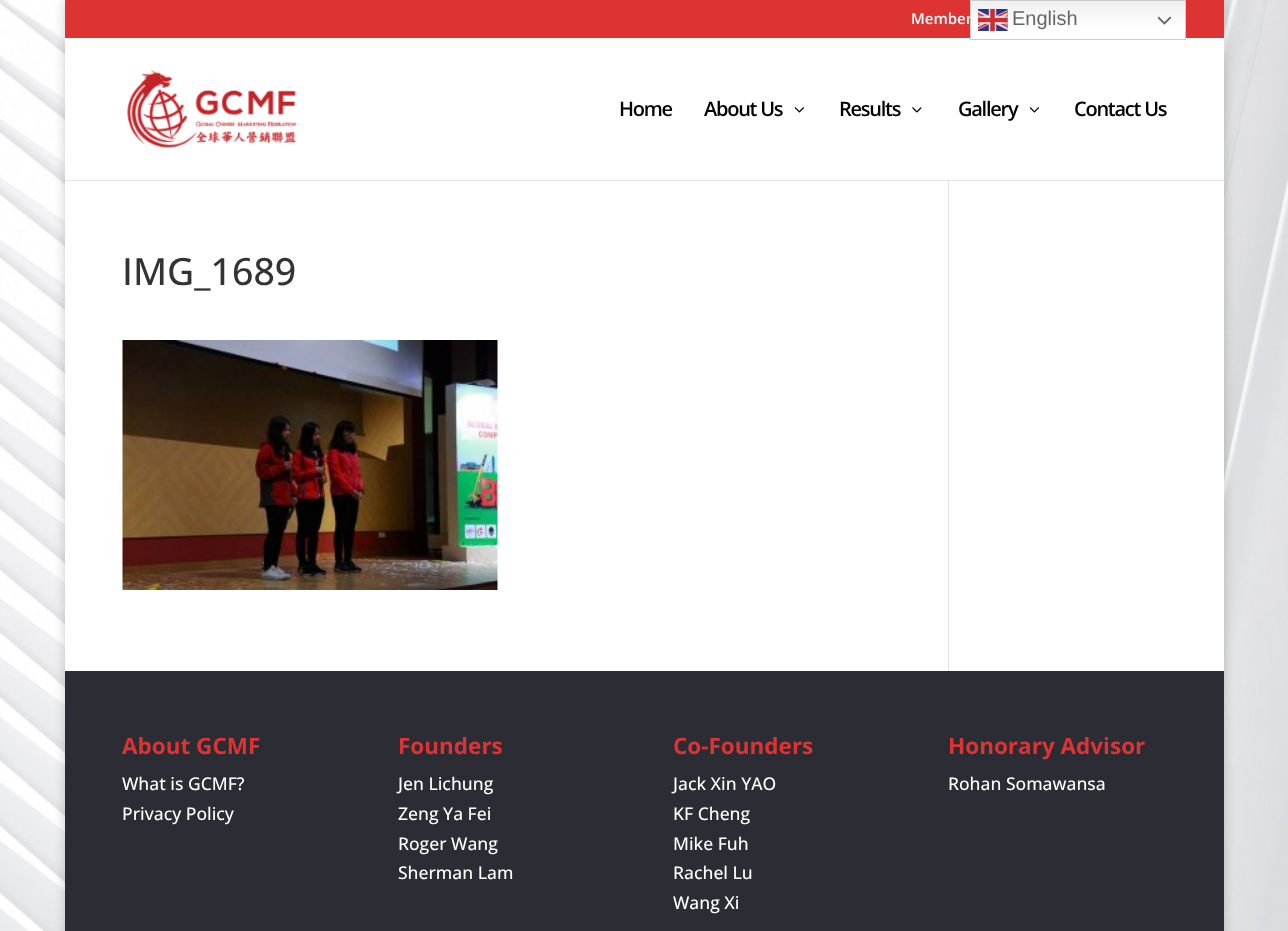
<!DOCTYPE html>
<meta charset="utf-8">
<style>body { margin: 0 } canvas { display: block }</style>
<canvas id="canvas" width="1288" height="931"></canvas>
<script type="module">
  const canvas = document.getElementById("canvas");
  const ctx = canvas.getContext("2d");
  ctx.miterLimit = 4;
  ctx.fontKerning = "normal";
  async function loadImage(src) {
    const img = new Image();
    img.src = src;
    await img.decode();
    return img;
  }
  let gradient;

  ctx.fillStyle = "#ffffff";
  ctx.fillRect(0, 0, 1288, 931);
  ctx.drawImage(await loadImage("img1.png"), 0, 0, 1288, 931);
  ctx.fillStyle = "rgba(0, 0, 0, 0.2)";
  ctx.filter = "blur(6px)";
  ctx.beginPath();
  ctx.rect(65, 0, 1159, 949);
  ctx.fill();
  ctx.filter = "none";
  ctx.fillStyle = "#dd3333";
  ctx.fillRect(65, 0, 1159, 38);
  ctx.font = "600 15px Open Sans";
  ctx.fillStyle = "#ffffff";
  ctx.fillText("Member", 911, 24);
  gradient = ctx.createLinearGradient(1078, 0, 1078, 40);
  gradient.addColorStop(0, "#efefef");
  gradient.addColorStop(0.7, "#ffffff");
  ctx.fillStyle = gradient;
  ctx.fillRect(971, 1, 214, 37);
  ctx.fillStyle = "#ffffff";
  ctx.fillRect(65, 38, 1159, 633);
  ctx.strokeStyle = "#cccccc";
  ctx.strokeRect(970.5, 0.5, 215, 39);
  ctx.drawImage(await loadImage("img2.png"), 978, 8, 30, 24);
  ctx.font = "20px Liberation Sans";
  ctx.fillStyle = "#666666";
  ctx.fillText("English", 1012, 25);
  ctx.drawImage(await loadImage("img3.png"), 1158, 16, 13, 9);
  ctx.fillStyle = "#e2e2e2";
  ctx.fillRect(948, 180, 1, 491);
  ctx.fillStyle = "rgba(0, 0, 0, 0.1)";
  ctx.beginPath();
  ctx.moveTo(65, 180);
  ctx.lineTo(65, 181);
  ctx.lineTo(1224, 181);
  ctx.lineTo(1224, 39);
  ctx.lineTo(1224, 180);
  ctx.closePath();
  ctx.fill();
  ctx.drawImage(await loadImage("img4.png"), 127, 69, 170, 79);
  ctx.letterSpacing = "-1.25px";
  ctx.font = "600 20px Open Sans";
  ctx.fillStyle = "#000000";
  ctx.fillText("Home", 619, 116);
  ctx.fillText("About Us", 704, 116);
  ctx.drawImage(await loadImage("img5.png"), 794, 107, 10, 6);
  ctx.fillText("Results", 839, 116);
  ctx.drawImage(await loadImage("img6.png"), 912, 107, 10, 6);
  ctx.fillText("Gallery", 958, 116);
  ctx.drawImage(await loadImage("img5.png"), 1029, 107, 10, 6);
  ctx.fillText("Contact Us", 1074, 116);
  ctx.letterSpacing = "0px";
  ctx.font = "500 37.5px Open Sans";
  ctx.fillStyle = "#333333";
  ctx.fillText("IMG_1689", 122, 285);
  ctx.drawImage(await loadImage("img7.png"), 122, 340, 376, 250);
  ctx.fillStyle = "#2c2c34";
  ctx.fillRect(65, 671, 1159, 260);
  ctx.font = "bold 22.5px Open Sans";
  ctx.fillStyle = "#dd3333";
  ctx.fillText("About GCMF", 122, 754);
  ctx.font = "500 17.5px Open Sans";
  ctx.fillStyle = "#ffffff";
  ctx.fillText("What is GCMF?", 122, 790);
  ctx.fillText("Privacy Policy", 122, 820);
  ctx.font = "bold 22.5px Open Sans";
  ctx.fillStyle = "#dd3333";
  ctx.fillText("Founders", 398, 754);
  ctx.font = "500 17.5px Open Sans";
  ctx.fillStyle = "#ffffff";
  ctx.fillText("Jen Lichung", 398, 790);
  ctx.fillText("Zeng Ya Fei", 398, 820);
  ctx.fillText("Roger Wang", 398, 850);
  ctx.fillText("Sherman Lam", 398, 879);
  ctx.font = "bold 22.5px Open Sans";
  ctx.fillStyle = "#dd3333";
  ctx.fillText("Co-Founders", 673, 754);
  ctx.font = "500 17.5px Open Sans";
  ctx.fillStyle = "#ffffff";
  ctx.fillText("Jack Xin YAO", 673, 790);
  ctx.fillText("KF Cheng", 673, 820);
  ctx.fillText("Mike Fuh", 673, 850);
  ctx.fillText("Rachel Lu", 673, 879);
  ctx.fillText("Wang Xi", 673, 909);
  ctx.font = "bold 22.5px Open Sans";
  ctx.fillStyle = "#dd3333";
  ctx.fillText("Honorary Advisor", 948, 754);
  ctx.font = "500 17.5px Open Sans";
  ctx.fillStyle = "#ffffff";
  ctx.fillText("Rohan Somawansa", 948, 790);
</script>
